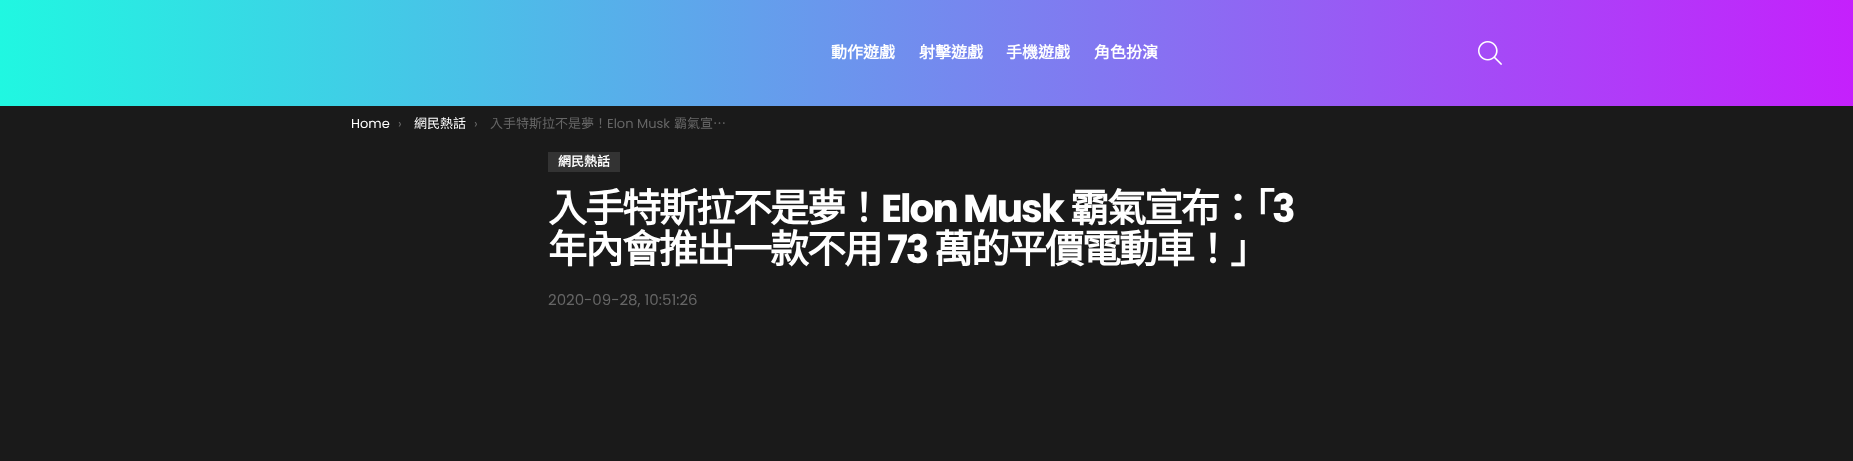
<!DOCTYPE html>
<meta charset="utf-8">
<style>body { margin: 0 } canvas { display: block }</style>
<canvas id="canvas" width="1853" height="461"></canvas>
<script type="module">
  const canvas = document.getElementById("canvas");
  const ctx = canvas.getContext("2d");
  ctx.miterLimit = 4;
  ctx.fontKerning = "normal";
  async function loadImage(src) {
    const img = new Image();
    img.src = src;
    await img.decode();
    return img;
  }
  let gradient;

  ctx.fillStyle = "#1a1a1a";
  ctx.fillRect(0, 0, 1853, 461);
  gradient = ctx.createLinearGradient(0, 53, 1853, 53);
  gradient.addColorStop(0, "#20f7e1");
  gradient.addColorStop(1, "#c520fc");
  ctx.fillStyle = gradient;
  ctx.fillRect(0, 0, 1853, 106);
  ctx.font = "bold 16px Noto Sans CJK HK";
  ctx.fillStyle = "#ffffff";
  ctx.fillText("動作遊戲", 831, 58);
  ctx.fillText("射擊遊戲", 919, 58);
  ctx.fillText("手機遊戲", 1006, 58);
  ctx.fillText("角色扮演", 1094, 58);
  ctx.drawImage(await loadImage("img1.png"), 1478, 41, 24, 24);
  ctx.font = "13px Poppins";
  ctx.fillText("Home", 351, 128);
  ctx.fillStyle = "#666666";
  ctx.fillText("›", 398, 128);
  ctx.font = "13px Noto Sans CJK HK";
  ctx.fillStyle = "#ffffff";
  ctx.fillText("網民熱話", 414, 128);
  ctx.font = "13px Poppins";
  ctx.fillStyle = "#666666";
  ctx.fillText("›", 474, 128);
  ctx.font = "13px Noto Sans CJK HK";
  ctx.fillText("入手特斯拉不是夢！", 490, 128);
  ctx.font = "13px Poppins";
  ctx.fillText("Elon Musk", 607, 128);
  ctx.font = "13px Noto Sans CJK HK";
  ctx.fillText("霸氣宣…", 674, 128);
  ctx.fillStyle = "#333333";
  ctx.fillRect(548, 152, 72, 20);
  ctx.font = "bold 13px Noto Sans CJK HK";
  ctx.fillStyle = "#ffffff";
  ctx.fillText("網民熱話", 558, 166);
  ctx.letterSpacing = "-2px";
  ctx.font = "bold 39px Noto Sans CJK HK";
  ctx.fillText("入手特斯拉不是夢！", 548, 222);
  ctx.fillText("霸氣宣布：「", 1070, 222);
  ctx.font = "bold 39px Poppins";
  ctx.fillText("Elon Musk", 881, 222);
  ctx.fillText("3", 1272, 222);
  ctx.font = "bold 39px Noto Sans CJK HK";
  ctx.fillText("年內會推出一款不用", 548, 263);
  ctx.font = "bold 39px Poppins";
  ctx.fillText("73", 887, 263);
  ctx.font = "bold 39px Noto Sans CJK HK";
  ctx.fillText("萬的平價電動車！」", 934, 263);
  ctx.letterSpacing = "0px";
  ctx.font = "15px Poppins";
  ctx.fillStyle = "#666666";
  ctx.fillText("2020-09-28, 10:51:26", 548, 305);
</script>
